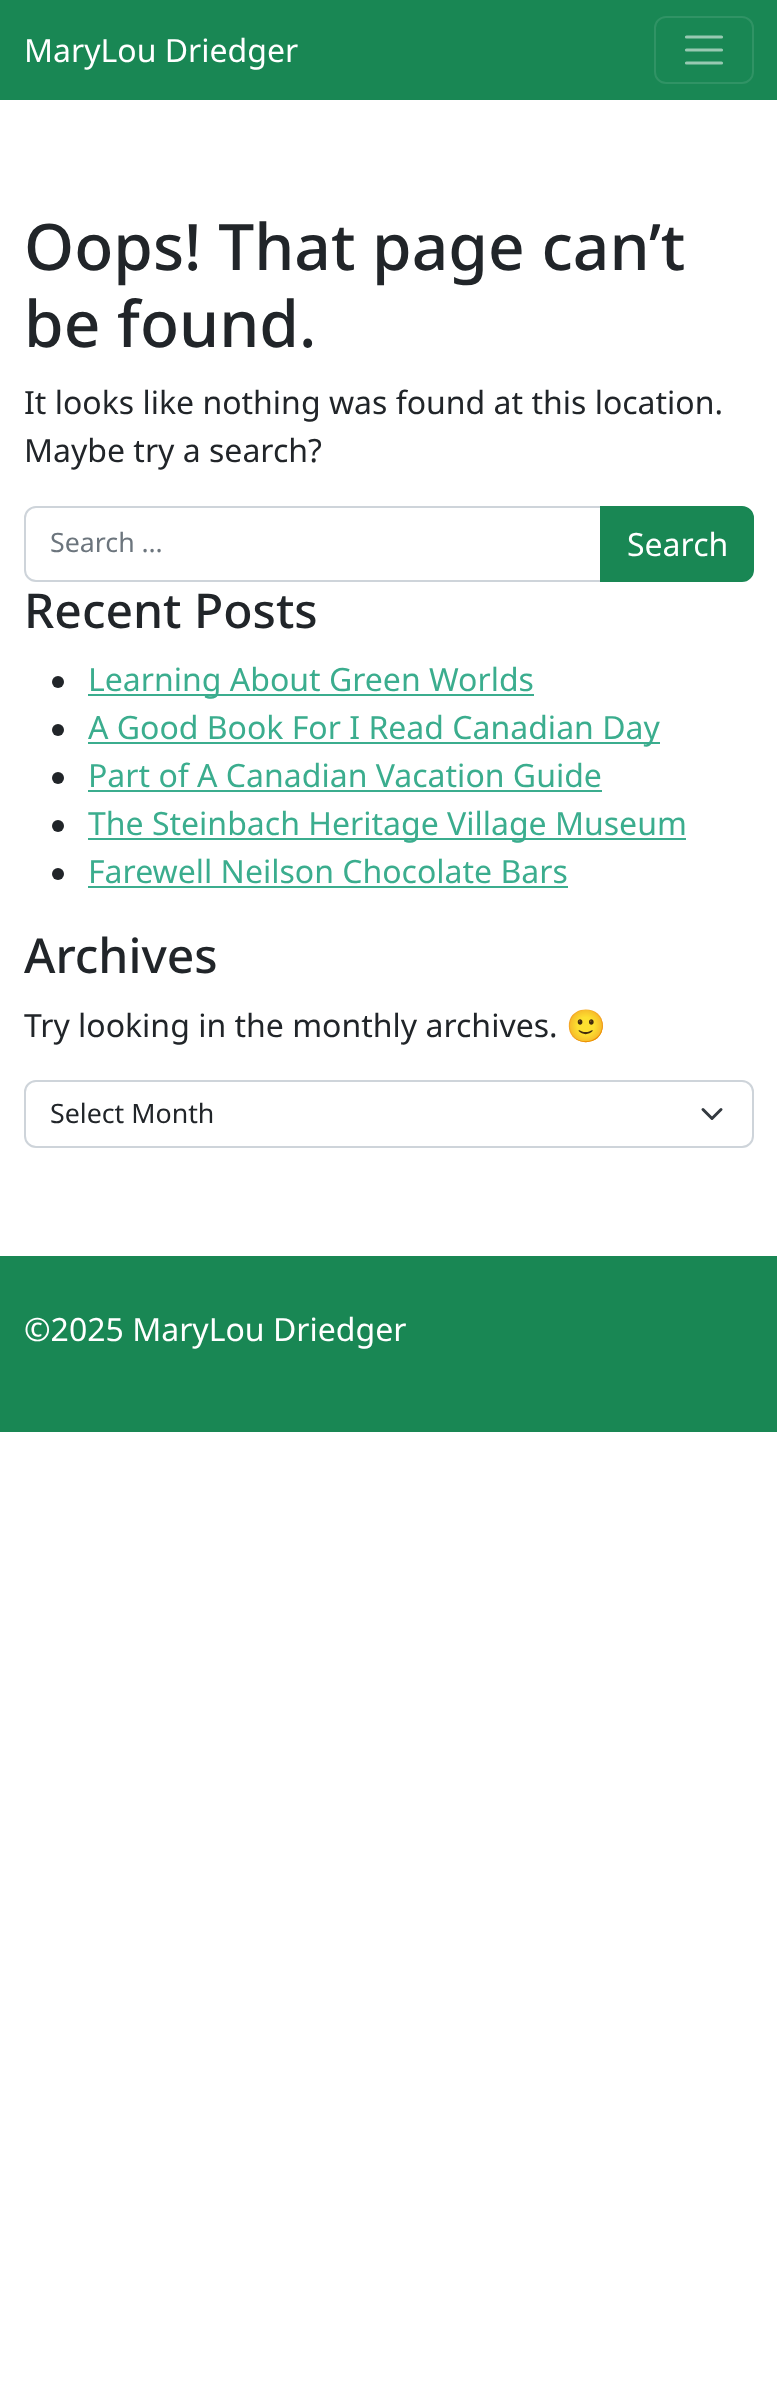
<!DOCTYPE html>
<meta charset="utf-8">
<style>body { margin: 0 } canvas { display: block }</style>
<canvas id="canvas" width="777" height="2393"></canvas>
<script type="module">
  const canvas = document.getElementById("canvas");
  const ctx = canvas.getContext("2d");
  ctx.miterLimit = 4;
  ctx.fontKerning = "normal";

  ctx.fillStyle = "#ffffff";
  ctx.fillRect(0, 0, 777, 2393);
  ctx.fillStyle = "#198754";
  ctx.fillRect(0, 0, 777, 100);
  ctx.font = "32px Noto Sans";
  ctx.fillStyle = "#ffffff";
  ctx.fillText("MaryLou Driedger", 24, 62);
  ctx.beginPath();
  ctx.roundRect(655, 17, 98, 66, 11);
  ctx.strokeStyle = "#309365";
  ctx.lineWidth = 2;
  ctx.stroke();
  ctx.beginPath();
  ctx.moveTo(686.5, 37);
  ctx.lineTo(721.5, 37);
  ctx.moveTo(686.5, 50);
  ctx.lineTo(721.5, 50);
  ctx.moveTo(686.5, 63);
  ctx.lineTo(721.5, 63);
  ctx.strokeStyle = "#98c9b2";
  ctx.lineWidth = 3.2;
  ctx.lineCap = "round";
  ctx.stroke();
  ctx.font = "500 64px Noto Sans";
  ctx.fillStyle = "#212529";
  ctx.fillText("Oops! That page can’t", 24, 270);
  ctx.fillText("be found.", 24, 347);
  ctx.font = "32px Noto Sans";
  ctx.fillText("It looks like nothing was found at this location.", 24, 414);
  ctx.fillText("Maybe try a search?", 24, 462);
  ctx.beginPath();
  ctx.roundRect(25, 507, 576, 74, [11, 0, 0, 11]);
  ctx.strokeStyle = "#ced4da";
  ctx.lineWidth = 2;
  ctx.stroke();
  ctx.font = "26.75px Noto Sans";
  ctx.fillStyle = "#6c757d";
  ctx.fillText("Search …", 50, 552);
  ctx.fillStyle = "#198754";
  ctx.beginPath();
  ctx.roundRect(601, 507, 152, 74, [0, 11, 11, 0]);
  ctx.fill();
  ctx.strokeStyle = "#198754";
  ctx.stroke();
  ctx.font = "32px Noto Sans";
  ctx.fillStyle = "#ffffff";
  ctx.fillText("Search", 627, 556);
  ctx.font = "500 48px Noto Sans";
  ctx.fillStyle = "#212529";
  ctx.fillText("Recent Posts", 24, 628);
  ctx.beginPath();
  ctx.arc(58, 682, 6, 0, Math.PI * 2);
  ctx.fill();
  ctx.fillStyle = "#3bad8e";
  ctx.fillRect(88, 694, 446, 2);
  ctx.font = "32px Noto Sans";
  ctx.fillText("Learning About Green Worlds", 88, 691);
  ctx.fillStyle = "#212529";
  ctx.beginPath();
  ctx.arc(58, 730, 6, 0, Math.PI * 2);
  ctx.fill();
  ctx.fillStyle = "#3bad8e";
  ctx.fillRect(88, 742, 572, 2);
  ctx.fillText("A Good Book For I Read Canadian Day", 88, 739);
  ctx.fillStyle = "#212529";
  ctx.beginPath();
  ctx.arc(58, 778, 6, 0, Math.PI * 2);
  ctx.fill();
  ctx.fillStyle = "#3bad8e";
  ctx.fillText("Part of A Canadian Vacation Guide", 88, 787);
  ctx.fillRect(88, 790, 514, 2);
  ctx.fillStyle = "#212529";
  ctx.beginPath();
  ctx.arc(58, 826, 6, 0, Math.PI * 2);
  ctx.fill();
  ctx.fillStyle = "#3bad8e";
  ctx.fillRect(88, 838, 598, 2);
  ctx.fillText("The Steinbach Heritage Village Museum", 88, 835);
  ctx.fillStyle = "#212529";
  ctx.beginPath();
  ctx.arc(58, 874, 6, 0, Math.PI * 2);
  ctx.fill();
  ctx.fillStyle = "#3bad8e";
  ctx.fillText("Farewell Neilson Chocolate Bars", 88, 883);
  ctx.fillRect(88, 886, 480, 2);
  ctx.font = "500 48px Noto Sans";
  ctx.fillStyle = "#212529";
  ctx.fillText("Archives", 24, 973);
  ctx.font = "32px Noto Sans";
  ctx.fillText("Try looking in the monthly archives.", 24, 1037);
  ctx.font = "32px Noto Color Emoji";
  ctx.fillText("🙂", 566, 1037);
  ctx.beginPath();
  ctx.moveTo(703, 1109.5);
  ctx.lineTo(712, 1118.5);
  ctx.lineTo(721, 1109.5);
  ctx.strokeStyle = "#343a40";
  ctx.lineWidth = 3;
  ctx.lineJoin = "round";
  ctx.stroke();
  ctx.beginPath();
  ctx.roundRect(25, 1081, 728, 66, 11);
  ctx.strokeStyle = "#ced4da";
  ctx.lineWidth = 2;
  ctx.lineJoin = "miter";
  ctx.stroke();
  ctx.font = "26.75px Noto Sans";
  ctx.fillText("Select Month", 50, 1123);
  ctx.fillStyle = "#198754";
  ctx.fillRect(0, 1256, 777, 176);
  ctx.font = "32px Noto Sans";
  ctx.fillStyle = "#ffffff";
  ctx.fillText("©2025 MaryLou Driedger", 24, 1341);
</script>
